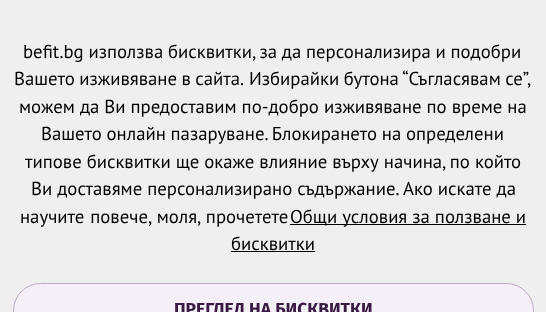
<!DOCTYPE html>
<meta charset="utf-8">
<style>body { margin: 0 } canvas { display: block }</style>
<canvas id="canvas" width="546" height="312"></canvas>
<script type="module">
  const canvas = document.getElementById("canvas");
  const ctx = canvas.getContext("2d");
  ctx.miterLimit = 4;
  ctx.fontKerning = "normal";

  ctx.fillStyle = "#efefef";
  ctx.fillRect(0, 0, 546, 312);
  ctx.wordSpacing = "-0.25px";
  ctx.font = "18.75px PT Sans";
  ctx.fillStyle = "#000000";
  ctx.fillText("befit.bg използва бисквитки, за да персонализира и подобри", 23, 58);
  ctx.wordSpacing = "-0.5px";
  ctx.fillText("Вашето изживяване в сайта.", 14, 85);
  ctx.fillText("Избирайки бутона “Съгласявам се”,", 249, 85);
  ctx.wordSpacing = "0px";
  ctx.fillText("можем да Ви предоставим по-добро изживяване по време на", 19, 113);
  ctx.wordSpacing = "-0.25px";
  ctx.fillText("Вашето онлайн пазаруване. Блокирането на определени", 41, 140);
  ctx.wordSpacing = "0px";
  ctx.fillText("типове бисквитки ще окаже влияние върху начина, по който", 25, 168);
  ctx.fillText("Ви доставяме персонализирано съдържание. Ако искате да", 31, 195);
  ctx.wordSpacing = "1px";
  ctx.fillText("научите повече, моля, прочетете", 20, 223);
  ctx.fillRect(290, 224, 236, 1);
  ctx.wordSpacing = "0px";
  ctx.fillText("Общи условия за ползване и", 290, 223);
  ctx.fillText("бисквитки", 231, 250);
  ctx.fillRect(231, 251, 84, 1);
  ctx.fillStyle = "#f5f0f7";
  ctx.beginPath();
  ctx.roundRect(13.5, 283.5, 520, 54, 27);
  ctx.fill();
  ctx.strokeStyle = "#c0a9c7";
  ctx.stroke();
  ctx.font = "bold 17.5px Fira Sans";
  ctx.fillStyle = "#3a1b44";
  ctx.fillText("ПРЕГЛЕД НА БИСКВИТКИ", 174, 315);
</script>
